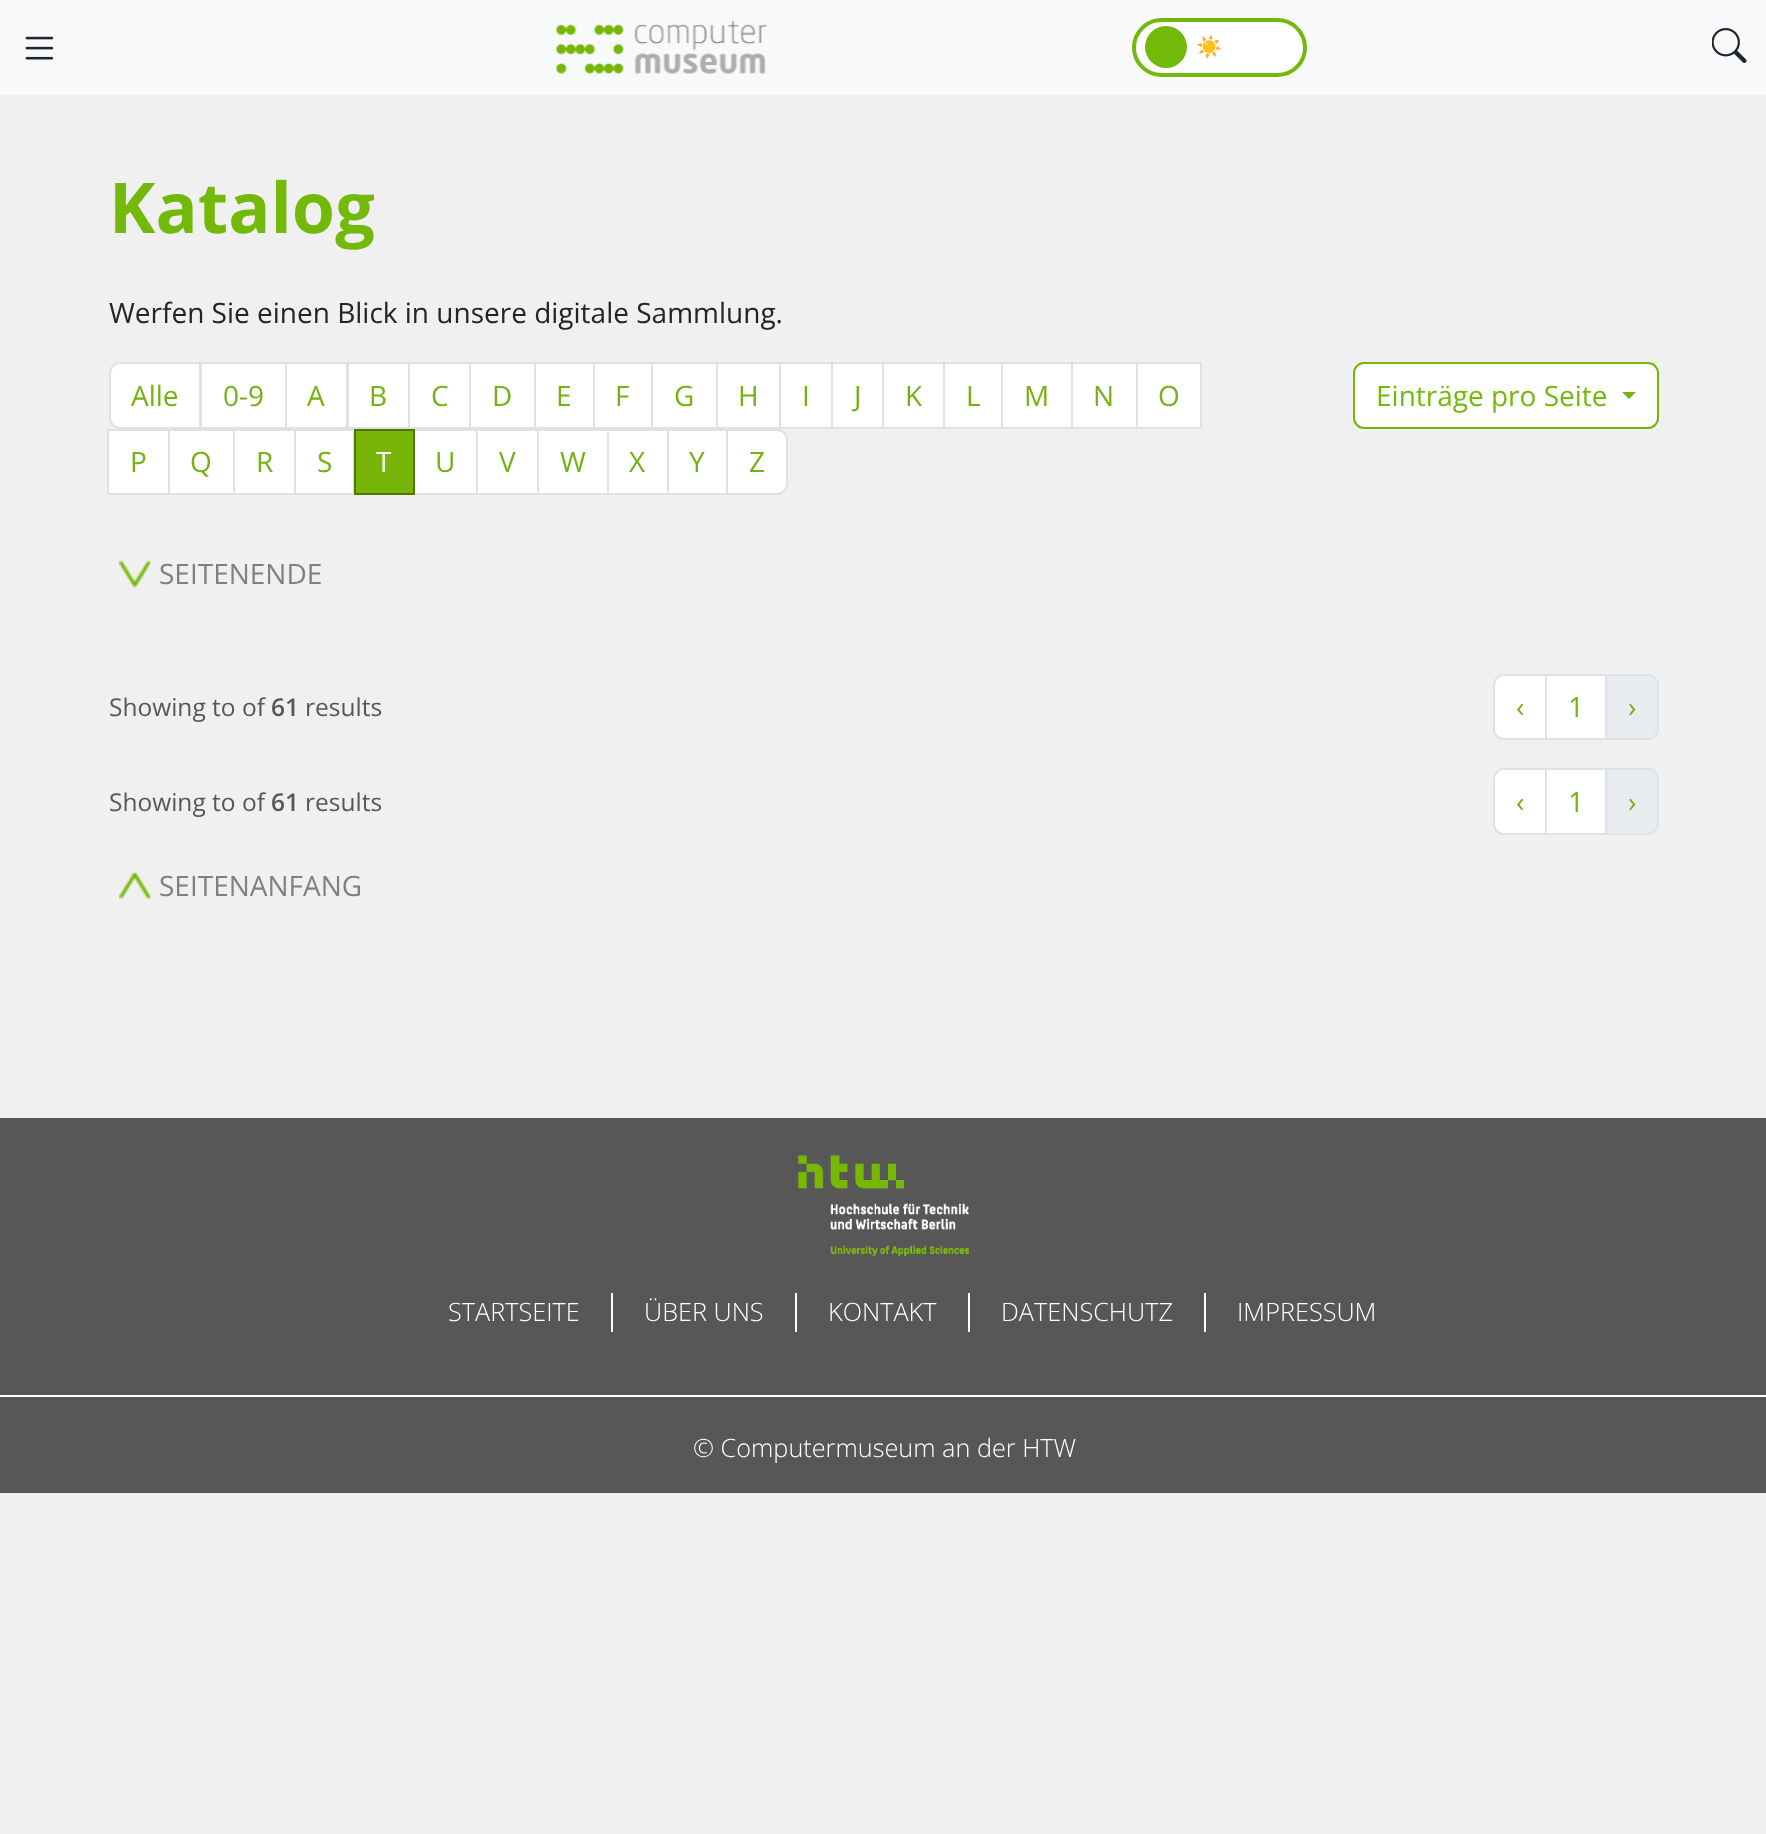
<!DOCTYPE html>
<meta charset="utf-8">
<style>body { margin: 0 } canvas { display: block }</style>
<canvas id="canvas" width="1766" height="1834"></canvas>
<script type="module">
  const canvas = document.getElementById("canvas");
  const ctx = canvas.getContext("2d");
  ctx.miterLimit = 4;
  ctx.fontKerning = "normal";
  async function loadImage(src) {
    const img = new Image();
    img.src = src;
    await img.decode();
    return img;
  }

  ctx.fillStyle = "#f0f0f0";
  ctx.fillRect(0, 0, 1766, 1834);
  ctx.fillStyle = "#f8f9fa";
  ctx.fillRect(0, 0, 1766, 95);
  ctx.drawImage(await loadImage("img1.png"), 25, 36, 29, 24);
  ctx.drawImage(await loadImage("img2.png"), 556, 21, 211, 53);
  ctx.fillStyle = "#ffffff";
  ctx.beginPath();
  ctx.roundRect(1134, 20, 171, 55, 27.5);
  ctx.fill();
  ctx.strokeStyle = "#73b90a";
  ctx.lineWidth = 4;
  ctx.stroke();
  ctx.fillStyle = "#73b90a";
  ctx.beginPath();
  ctx.arc(1166, 47, 21, 0, Math.PI * 2);
  ctx.fill();
  ctx.font = "21px Noto Color Emoji";
  ctx.fillText("☀️", 1196, 54);
  ctx.drawImage(await loadImage("img3.png"), 1712, 28, 35, 35);
  ctx.font = "bold 70px Open Sans";
  ctx.fillText("Katalog", 109, 233);
  ctx.font = "28px Open Sans";
  ctx.fillStyle = "#212529";
  ctx.fillText("Werfen Sie einen Blick in unsere digitale Sammlung.", 109, 323);
  ctx.fillStyle = "#ffffff";
  ctx.beginPath();
  ctx.roundRect(110, 363, 90, 65, [10, 0, 0, 10]);
  ctx.fill();
  ctx.strokeStyle = "#dee2e6";
  ctx.lineWidth = 2;
  ctx.stroke();
  ctx.fillStyle = "#74b213";
  ctx.fillText("Alle", 131, 406);
  ctx.fillStyle = "#ffffff";
  ctx.beginPath();
  ctx.rect(201, 363, 85, 65);
  ctx.fill();
  ctx.stroke();
  ctx.fillStyle = "#74b213";
  ctx.fillText("0-9", 223, 406);
  ctx.fillStyle = "#ffffff";
  ctx.beginPath();
  ctx.rect(286, 363, 61, 65);
  ctx.fill();
  ctx.stroke();
  ctx.fillStyle = "#74b213";
  ctx.fillText("A", 307, 406);
  ctx.fillStyle = "#ffffff";
  ctx.beginPath();
  ctx.rect(348, 363, 61, 65);
  ctx.fill();
  ctx.stroke();
  ctx.fillStyle = "#74b213";
  ctx.fillText("B", 369, 406);
  ctx.fillStyle = "#ffffff";
  ctx.beginPath();
  ctx.rect(409, 363, 61, 65);
  ctx.fill();
  ctx.stroke();
  ctx.fillStyle = "#74b213";
  ctx.fillText("C", 431, 406);
  ctx.fillStyle = "#ffffff";
  ctx.beginPath();
  ctx.rect(470, 363, 65, 65);
  ctx.fill();
  ctx.stroke();
  ctx.fillStyle = "#74b213";
  ctx.fillText("D", 492, 406);
  ctx.fillStyle = "#ffffff";
  ctx.beginPath();
  ctx.rect(535, 363, 59, 65);
  ctx.fill();
  ctx.stroke();
  ctx.fillStyle = "#74b213";
  ctx.fillText("E", 556, 406);
  ctx.fillStyle = "#ffffff";
  ctx.beginPath();
  ctx.rect(594, 363, 58, 65);
  ctx.fill();
  ctx.stroke();
  ctx.fillStyle = "#74b213";
  ctx.fillText("F", 615, 406);
  ctx.fillStyle = "#ffffff";
  ctx.beginPath();
  ctx.rect(652, 363, 65, 65);
  ctx.fill();
  ctx.stroke();
  ctx.fillStyle = "#74b213";
  ctx.fillText("G", 674, 406);
  ctx.fillStyle = "#ffffff";
  ctx.beginPath();
  ctx.rect(717, 363, 63, 65);
  ctx.fill();
  ctx.stroke();
  ctx.fillStyle = "#74b213";
  ctx.fillText("H", 738, 406);
  ctx.fillStyle = "#ffffff";
  ctx.beginPath();
  ctx.rect(780, 363, 52, 65);
  ctx.fill();
  ctx.stroke();
  ctx.fillStyle = "#74b213";
  ctx.fillText("I", 802, 406);
  ctx.fillStyle = "#ffffff";
  ctx.beginPath();
  ctx.rect(832, 363, 51, 65);
  ctx.fill();
  ctx.stroke();
  ctx.fillStyle = "#74b213";
  ctx.fillText("J", 854, 406);
  ctx.fillStyle = "#ffffff";
  ctx.beginPath();
  ctx.rect(883, 363, 61, 65);
  ctx.fill();
  ctx.stroke();
  ctx.fillStyle = "#74b213";
  ctx.fillText("K", 905, 406);
  ctx.fillStyle = "#ffffff";
  ctx.beginPath();
  ctx.rect(944, 363, 58, 65);
  ctx.fill();
  ctx.stroke();
  ctx.fillStyle = "#74b213";
  ctx.fillText("L", 966, 406);
  ctx.fillStyle = "#ffffff";
  ctx.beginPath();
  ctx.rect(1002, 363, 70, 65);
  ctx.fill();
  ctx.stroke();
  ctx.fillStyle = "#74b213";
  ctx.fillText("M", 1024, 406);
  ctx.fillStyle = "#ffffff";
  ctx.beginPath();
  ctx.rect(1072, 363, 65, 65);
  ctx.fill();
  ctx.stroke();
  ctx.fillStyle = "#74b213";
  ctx.fillText("N", 1093, 406);
  ctx.fillStyle = "#ffffff";
  ctx.beginPath();
  ctx.rect(1137, 363, 64, 65);
  ctx.fill();
  ctx.stroke();
  ctx.fillStyle = "#74b213";
  ctx.fillText("O", 1158, 406);
  ctx.fillStyle = "#ffffff";
  ctx.beginPath();
  ctx.rect(108, 430, 61, 64);
  ctx.fill();
  ctx.stroke();
  ctx.fillStyle = "#74b213";
  ctx.fillText("P", 130, 472);
  ctx.fillStyle = "#ffffff";
  ctx.beginPath();
  ctx.rect(169, 430, 65, 64);
  ctx.fill();
  ctx.stroke();
  ctx.fillStyle = "#74b213";
  ctx.fillText("Q", 190, 472);
  ctx.fillStyle = "#ffffff";
  ctx.beginPath();
  ctx.rect(234, 430, 61, 64);
  ctx.fill();
  ctx.stroke();
  ctx.fillStyle = "#74b213";
  ctx.fillText("R", 256, 472);
  ctx.fillStyle = "#ffffff";
  ctx.beginPath();
  ctx.rect(295, 430, 59, 64);
  ctx.fill();
  ctx.stroke();
  ctx.fillStyle = "#74b213";
  ctx.fillText("S", 317, 472);
  ctx.fillStyle = "#ffffff";
  ctx.beginPath();
  ctx.rect(414, 430, 63, 64);
  ctx.fill();
  ctx.stroke();
  ctx.fillStyle = "#77b508";
  ctx.beginPath();
  ctx.rect(355, 430, 59, 64);
  ctx.fill();
  ctx.strokeStyle = "#527606";
  ctx.stroke();
  ctx.fillStyle = "#ffffff";
  ctx.fillText("T", 376, 472);
  ctx.fillStyle = "#74b213";
  ctx.fillText("U", 435, 472);
  ctx.fillStyle = "#ffffff";
  ctx.beginPath();
  ctx.rect(477, 430, 61, 64);
  ctx.fill();
  ctx.strokeStyle = "#dee2e6";
  ctx.stroke();
  ctx.fillStyle = "#74b213";
  ctx.fillText("V", 499, 472);
  ctx.fillStyle = "#ffffff";
  ctx.beginPath();
  ctx.rect(538, 430, 70, 64);
  ctx.fill();
  ctx.stroke();
  ctx.fillStyle = "#74b213";
  ctx.fillText("W", 560, 472);
  ctx.fillStyle = "#ffffff";
  ctx.beginPath();
  ctx.rect(608, 430, 60, 64);
  ctx.fill();
  ctx.stroke();
  ctx.fillStyle = "#74b213";
  ctx.fillText("X", 629, 472);
  ctx.fillStyle = "#ffffff";
  ctx.beginPath();
  ctx.rect(668, 430, 59, 64);
  ctx.fill();
  ctx.stroke();
  ctx.fillStyle = "#74b213";
  ctx.fillText("Y", 689, 472);
  ctx.fillStyle = "#ffffff";
  ctx.beginPath();
  ctx.roundRect(727, 430, 60, 64, [0, 10, 10, 0]);
  ctx.fill();
  ctx.stroke();
  ctx.fillStyle = "#74b213";
  ctx.fillText("Z", 749, 472);
  ctx.fillStyle = "#ffffff";
  ctx.beginPath();
  ctx.roundRect(1354, 363, 304, 65, 10);
  ctx.fill();
  ctx.strokeStyle = "#77b508";
  ctx.stroke();
  ctx.fillStyle = "#73b90a";
  ctx.fillText("Einträge pro Seite", 1376, 406);
  ctx.fillStyle = "#77b508";
  ctx.beginPath();
  ctx.moveTo(1622, 392);
  ctx.lineTo(1636, 392);
  ctx.lineTo(1629, 399);
  ctx.closePath();
  ctx.fill();
  ctx.drawImage(await loadImage("img4.png"), 119, 559, 32, 30);
  ctx.fillStyle = "#808080";
  ctx.fillText("SEITENENDE", 159, 584);
  ctx.font = "24.5px Open Sans";
  ctx.fillStyle = "#55585b";
  ctx.fillText("Showing to of", 109, 716);
  ctx.font = "600 24.5px Open Sans";
  ctx.fillText("61", 271, 716);
  ctx.font = "24.5px Open Sans";
  ctx.fillText("results", 305, 716);
  ctx.fillStyle = "#ffffff";
  ctx.beginPath();
  ctx.roundRect(1494, 675, 52, 64, [10, 0, 0, 10]);
  ctx.fill();
  ctx.strokeStyle = "#dee2e6";
  ctx.stroke();
  ctx.font = "28px Open Sans";
  ctx.fillStyle = "#74b213";
  ctx.fillText("‹", 1516, 717);
  ctx.fillStyle = "#ffffff";
  ctx.beginPath();
  ctx.rect(1546, 675, 60, 64);
  ctx.fill();
  ctx.stroke();
  ctx.fillStyle = "#74b213";
  ctx.fillText("1", 1568, 717);
  ctx.fillStyle = "#e9ecef";
  ctx.beginPath();
  ctx.roundRect(1606, 675, 52, 64, [0, 10, 10, 0]);
  ctx.fill();
  ctx.stroke();
  ctx.fillStyle = "#74b213";
  ctx.fillText("›", 1628, 717);
  ctx.font = "24.5px Open Sans";
  ctx.fillStyle = "#55585b";
  ctx.fillText("Showing to of", 109, 811);
  ctx.font = "600 24.5px Open Sans";
  ctx.fillText("61", 271, 811);
  ctx.font = "24.5px Open Sans";
  ctx.fillText("results", 305, 811);
  ctx.fillStyle = "#ffffff";
  ctx.beginPath();
  ctx.roundRect(1494, 769, 52, 65, [10, 0, 0, 10]);
  ctx.fill();
  ctx.stroke();
  ctx.font = "28px Open Sans";
  ctx.fillStyle = "#74b213";
  ctx.fillText("‹", 1516, 812);
  ctx.fillStyle = "#ffffff";
  ctx.beginPath();
  ctx.rect(1546, 769, 60, 65);
  ctx.fill();
  ctx.stroke();
  ctx.fillStyle = "#74b213";
  ctx.fillText("1", 1568, 812);
  ctx.fillStyle = "#e9ecef";
  ctx.beginPath();
  ctx.roundRect(1606, 769, 52, 65, [0, 10, 10, 0]);
  ctx.fill();
  ctx.stroke();
  ctx.fillStyle = "#74b213";
  ctx.fillText("›", 1628, 812);
  ctx.drawImage(await loadImage("img5.png"), 119, 871, 32, 29);
  ctx.fillStyle = "#808080";
  ctx.fillText("SEITENANFANG", 159, 896);
  ctx.fillStyle = "#575757";
  ctx.fillRect(0, 1118, 1766, 375);
  ctx.drawImage(await loadImage("img6.png"), 797, 1155, 172, 101);
  ctx.fillStyle = "#fefefe";
  ctx.fillRect(611, 1293, 2, 39);
  ctx.font = "300 25.25px Open Sans";
  ctx.fillStyle = "#ffffff";
  ctx.fillText("STARTSEITE", 448, 1321);
  ctx.fillStyle = "#fefefe";
  ctx.fillRect(795, 1293, 2, 39);
  ctx.fillStyle = "#ffffff";
  ctx.fillText("ÜBER UNS", 644, 1321);
  ctx.fillStyle = "#fefefe";
  ctx.fillRect(968, 1293, 2, 39);
  ctx.fillStyle = "#ffffff";
  ctx.fillText("KONTAKT", 828, 1321);
  ctx.fillStyle = "#fefefe";
  ctx.fillRect(1204, 1293, 2, 39);
  ctx.fillStyle = "#ffffff";
  ctx.fillText("DATENSCHUTZ", 1001, 1321);
  ctx.fillText("IMPRESSUM", 1237, 1321);
  ctx.fillStyle = "#fefefe";
  ctx.fillRect(0, 1395, 1766, 2);
  ctx.fillStyle = "#ffffff";
  ctx.fillText("© Computermuseum an der HTW", 693, 1457);
</script>
